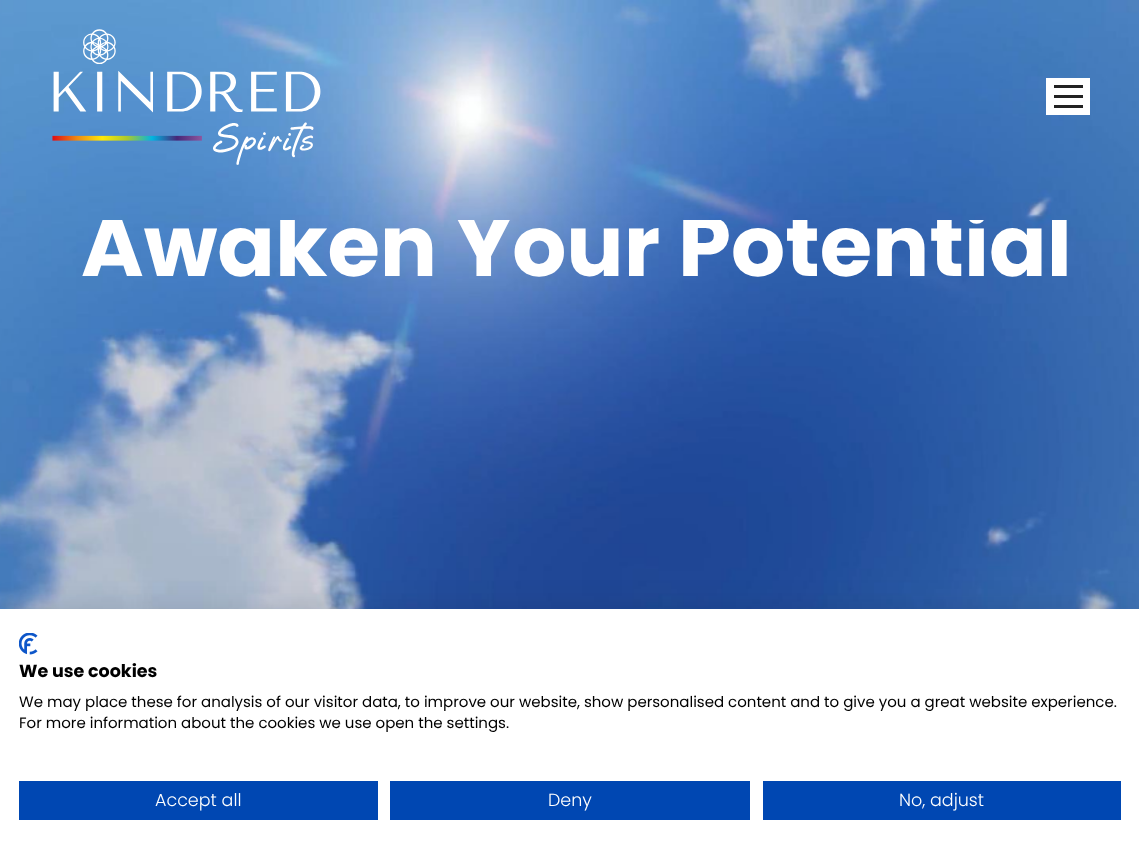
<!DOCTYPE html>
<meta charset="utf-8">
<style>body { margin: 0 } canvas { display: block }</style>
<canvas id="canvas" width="1139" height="853"></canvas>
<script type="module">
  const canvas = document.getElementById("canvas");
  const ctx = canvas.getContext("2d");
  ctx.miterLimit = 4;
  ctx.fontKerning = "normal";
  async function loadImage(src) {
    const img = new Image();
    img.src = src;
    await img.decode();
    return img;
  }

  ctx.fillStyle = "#ffffff";
  ctx.fillRect(0, 0, 1139, 853);
  ctx.drawImage(await loadImage("img2.png"), 0, 0, 1139, 609);
  ctx.drawImage(await loadImage("img1.png"), 52, 29, 269, 136);
  ctx.fillRect(1046, 78, 44, 37);
  ctx.fillStyle = "#222222";
  ctx.fillRect(1054, 85, 29, 3);
  ctx.fillRect(1054, 95, 29, 3);
  ctx.fillRect(1054, 105, 29, 3);
  ctx.save();
  ctx.beginPath();
  ctx.rect(81, 220, 999, 183);
  ctx.clip();
  ctx.font = "bold 85px Poppins";
  ctx.fillStyle = "#ffffff";
  ctx.fillText("Awaken Your Potential", 81, 276);
  ctx.restore();
  ctx.fillStyle = "rgba(0, 0, 0, 0.1)";
  ctx.filter = "blur(15px)";
  ctx.beginPath();
  ctx.rect(0, 609, 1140, 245);
  ctx.fill();
  ctx.filter = "none";
  ctx.fillStyle = "#ffffff";
  ctx.fillRect(0, 609, 1139, 244);
  ctx.drawImage(await loadImage("img3.png"), 19, 633, 19, 22);
  ctx.font = "bold 17.5px Poppins";
  ctx.fillStyle = "#000000";
  ctx.fillText("We use cookies", 19, 677);
  ctx.font = "15px Poppins";
  ctx.fillText("We may place these for analysis of our visitor data, to improve our website, show personalised content and to give you a great website experience.", 19, 707);
  ctx.fillText("For more information about the cookies we use open the settings.", 19, 728);
  ctx.fillStyle = "#0047b2";
  ctx.fillRect(19, 781, 359, 39);
  ctx.font = "300 17.5px Poppins";
  ctx.fillStyle = "#ffffff";
  ctx.fillText("Accept all", 155, 806);
  ctx.fillStyle = "#0047b2";
  ctx.fillRect(390, 781, 360, 39);
  ctx.fillStyle = "#ffffff";
  ctx.fillText("Deny", 548, 806);
  ctx.fillStyle = "#0047b2";
  ctx.fillRect(763, 781, 358, 39);
  ctx.fillStyle = "#ffffff";
  ctx.fillText("No, adjust", 899, 806);
</script>
